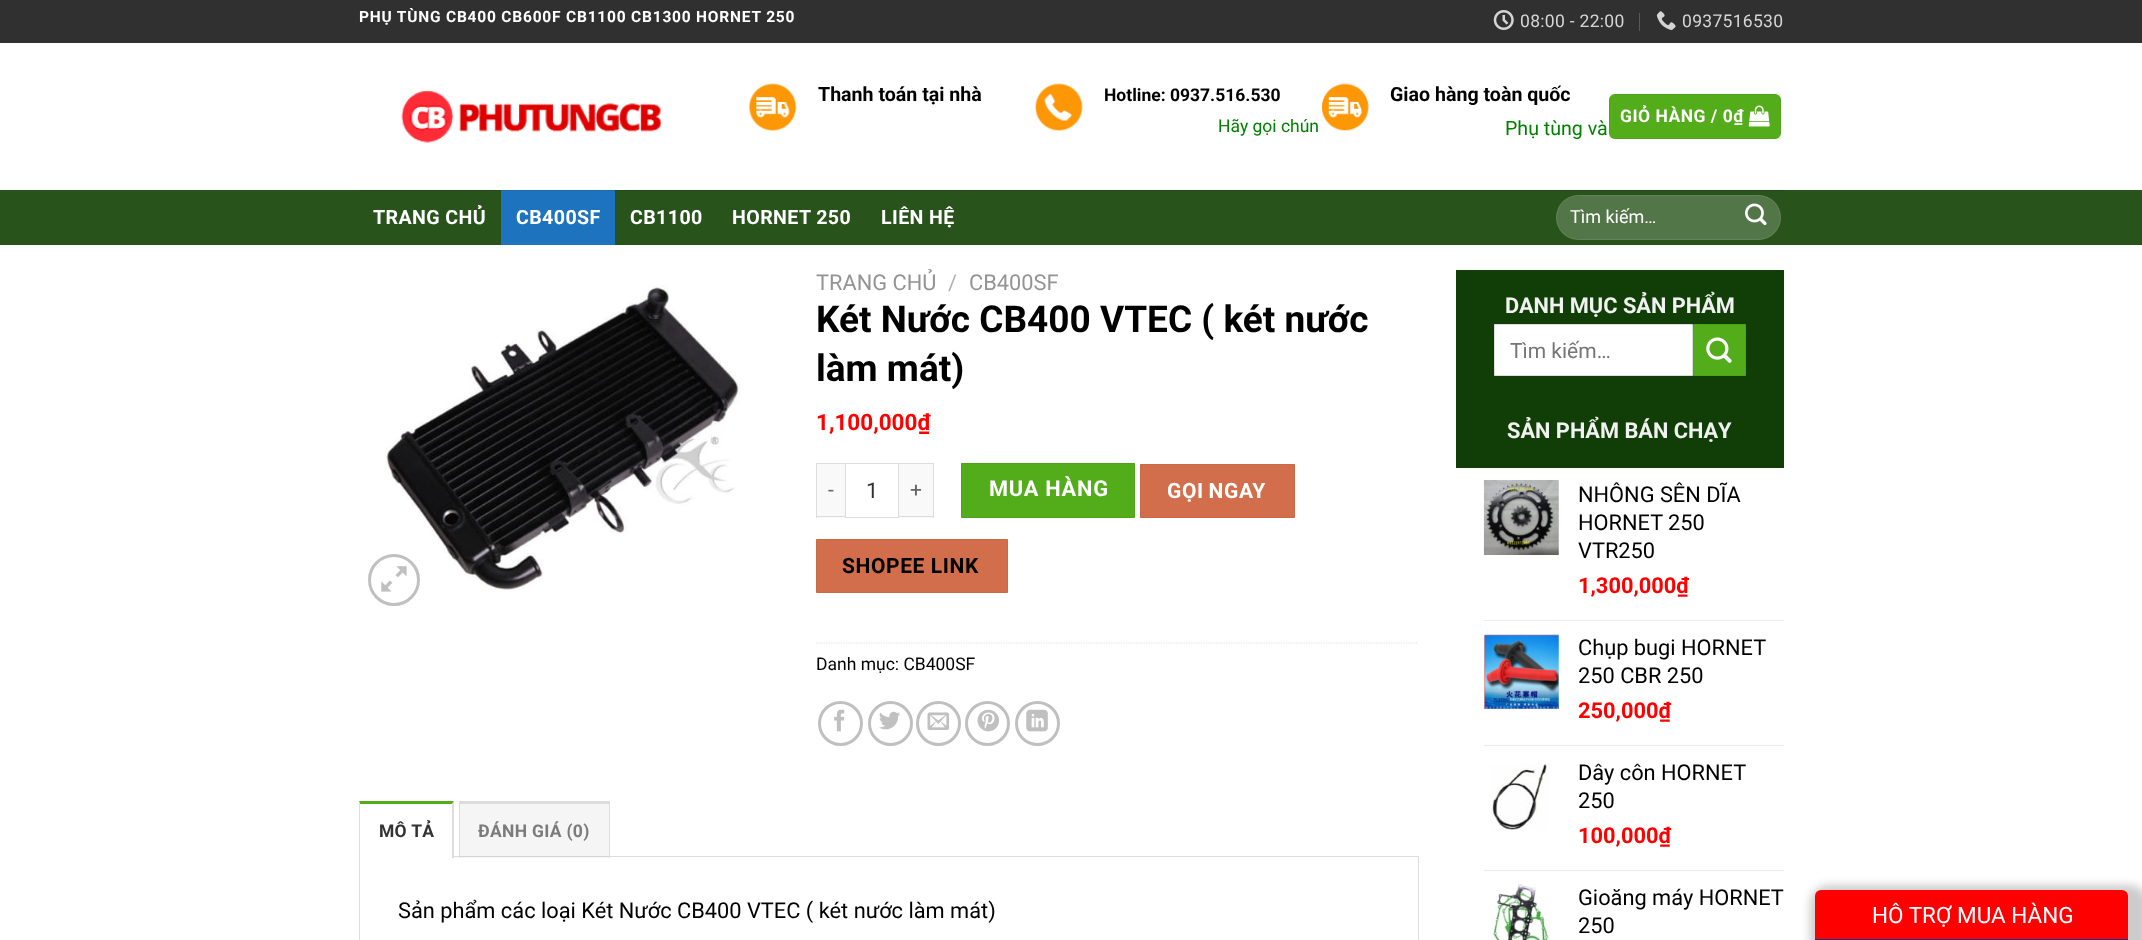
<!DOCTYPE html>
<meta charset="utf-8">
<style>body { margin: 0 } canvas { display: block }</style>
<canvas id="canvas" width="2142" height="940"></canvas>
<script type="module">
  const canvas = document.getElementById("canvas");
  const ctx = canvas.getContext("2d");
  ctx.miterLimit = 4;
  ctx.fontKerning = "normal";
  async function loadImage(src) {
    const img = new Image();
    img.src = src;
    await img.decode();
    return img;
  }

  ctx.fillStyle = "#ffffff";
  ctx.fillRect(0, 0, 2142, 940);
  ctx.fillStyle = "#303030";
  ctx.fillRect(0, 0, 2142, 43);
  ctx.letterSpacing = "0.8px";
  ctx.font = "bold 15.5px Roboto";
  ctx.fillStyle = "#ffffff";
  ctx.fillText("PHỤ TÙNG CB400 CB600F CB1100 CB1300 HORNET 250", 359, 22);
  ctx.drawImage(await loadImage("img1.png"), 1493, 10, 21, 20);
  ctx.letterSpacing = "0.3px";
  ctx.font = "17.5px Roboto";
  ctx.fillStyle = "#d6d6d6";
  ctx.fillText("08:00 - 22:00", 1520, 27);
  ctx.fillStyle = "#595959";
  ctx.fillRect(1639, 13, 1, 18);
  ctx.drawImage(await loadImage("img2.png"), 1656, 11, 20, 19);
  ctx.fillStyle = "#d6d6d6";
  ctx.fillText("0937516530", 1682, 27);
  ctx.drawImage(await loadImage("img3.png"), 401, 90, 261, 53);
  ctx.drawImage(await loadImage("img4.png"), 749, 83, 48, 48);
  ctx.letterSpacing = "0px";
  ctx.font = "bold 19.6px Roboto";
  ctx.fillStyle = "#000000";
  ctx.fillText("Thanh toán tại nhà", 818, 101);
  ctx.drawImage(await loadImage("img5.png"), 1035, 83, 48, 48);
  ctx.font = "bold 17.5px Roboto";
  ctx.fillText("Hotline: 0937.516.530", 1104, 101);
  ctx.font = "17.5px Roboto";
  ctx.fillStyle = "#008000";
  ctx.fillText("Hãy gọi chún", 1218, 132);
  ctx.drawImage(await loadImage("img6.png"), 1322, 83, 47, 48);
  ctx.font = "bold 19.6px Roboto";
  ctx.fillStyle = "#000000";
  ctx.fillText("Giao hàng toàn quốc", 1390, 101);
  ctx.font = "19.6px Roboto";
  ctx.fillStyle = "#008000";
  ctx.fillText("Phụ tùng và", 1505, 135);
  ctx.fillStyle = "#53ac19";
  ctx.beginPath();
  ctx.roundRect(1609, 94, 172, 45, 6);
  ctx.fill();
  ctx.strokeStyle = "rgba(0, 0, 0, 0.05)";
  ctx.strokeRect(1609.5, 94.5, 171, 44);
  ctx.letterSpacing = "0.5px";
  ctx.font = "bold 17.5px Roboto";
  ctx.fillStyle = "#ffffff";
  ctx.fillText("GIỎ HÀNG / 0₫", 1620, 122);
  ctx.drawImage(await loadImage("img7.png"), 1748, 105, 22, 22);
  ctx.fillStyle = "#28541c";
  ctx.fillRect(0, 190, 2142, 55);
  ctx.fillStyle = "#244c19";
  ctx.fillRect(359, 190, 1425, 1);
  ctx.letterSpacing = "0.4px";
  ctx.font = "bold 19.6px Roboto";
  ctx.fillStyle = "#ffffff";
  ctx.fillText("TRANG CHỦ", 373, 224);
  ctx.fillStyle = "#1e73be";
  ctx.fillRect(501, 191, 114, 54);
  ctx.fillStyle = "#1b68ab";
  ctx.fillRect(501, 190, 114, 1);
  ctx.fillStyle = "#ffffff";
  ctx.fillText("CB400SF", 516, 224);
  ctx.fillText("CB1100", 630, 224);
  ctx.fillText("HORNET 250", 732, 224);
  ctx.fillText("LIÊN HỆ", 881, 224);
  ctx.fillStyle = "#537649";
  ctx.beginPath();
  ctx.roundRect(1556, 195, 225, 45, 22.5);
  ctx.fill();
  ctx.beginPath();
  ctx.roundRect(1556.5, 195.5, 224, 44, 22);
  ctx.strokeStyle = "rgba(255, 255, 255, 0.09)";
  ctx.stroke();
  ctx.letterSpacing = "0px";
  ctx.font = "18px Roboto";
  ctx.fillStyle = "#ffffff";
  ctx.fillText("Tìm kiếm…", 1570, 223);
  ctx.drawImage(await loadImage("img8.png"), 1745, 203, 22, 23);
  ctx.drawImage(await loadImage("img9.png"), 385, 284, 356, 306);
  ctx.beginPath();
  ctx.arc(394, 580, 24.5, 0, Math.PI * 2);
  ctx.strokeStyle = "#c0c0c0";
  ctx.lineWidth = 3;
  ctx.stroke();
  ctx.drawImage(await loadImage("img10.png"), 381, 566, 26, 26);
  ctx.font = "21.8px Roboto";
  ctx.fillStyle = "#949494";
  ctx.fillText("TRANG CHỦ", 816, 290);
  ctx.fillStyle = "#b2b2b2";
  ctx.fillText("/", 948, 290);
  ctx.fillStyle = "#949494";
  ctx.fillText("CB400SF", 969, 290);
  ctx.font = "bold 37px Roboto";
  ctx.fillStyle = "#000000";
  ctx.fillText("Két Nước CB400 VTEC ( két nước", 816, 332);
  ctx.fillText("làm mát)", 816, 381);
  ctx.font = "bold 22.5px Roboto";
  ctx.fillStyle = "#ff0000";
  ctx.fillText("1,100,000₫", 816, 430);
  ctx.fillStyle = "#f9f9f9";
  ctx.fillRect(817, 464, 28, 54);
  ctx.fillStyle = "#dddddd";
  ctx.fillRect(816, 463, 29, 1);
  ctx.fillRect(816, 516, 29, 1);
  ctx.fillRect(816, 463, 1, 55);
  ctx.letterSpacing = "0.6px";
  ctx.font = "21px Roboto";
  ctx.fillStyle = "#666666";
  ctx.fillText("-", 828, 497);
  ctx.strokeStyle = "#dddddd";
  ctx.lineWidth = 1;
  ctx.strokeRect(845.5, 463.5, 53, 54);
  ctx.letterSpacing = "0px";
  ctx.font = "21.8px Roboto";
  ctx.fillStyle = "#333333";
  ctx.fillText("1", 866, 498);
  ctx.fillStyle = "#f9f9f9";
  ctx.fillRect(899, 464, 34, 54);
  ctx.fillStyle = "#dddddd";
  ctx.fillRect(899, 463, 35, 1);
  ctx.fillRect(933, 463, 1, 55);
  ctx.fillRect(899, 516, 35, 1);
  ctx.letterSpacing = "0.6px";
  ctx.font = "21px Roboto";
  ctx.fillStyle = "#666666";
  ctx.fillText("+", 910, 497);
  ctx.fillStyle = "#53ac19";
  ctx.beginPath();
  ctx.rect(961.5, 463.5, 173, 54);
  ctx.fill();
  ctx.strokeStyle = "#4fa318";
  ctx.stroke();
  ctx.letterSpacing = "0.75px";
  ctx.font = "bold 21.8px Roboto";
  ctx.fillStyle = "#ffffff";
  ctx.fillText("MUA HÀNG", 989, 496);
  ctx.fillStyle = "#d26e4b";
  ctx.beginPath();
  ctx.rect(1140.5, 464.5, 154, 53);
  ctx.fill();
  ctx.strokeStyle = "#c86947";
  ctx.stroke();
  ctx.letterSpacing = "0.6px";
  ctx.wordSpacing = "-1px";
  ctx.font = "bold 21px Roboto";
  ctx.fillStyle = "#ffffff";
  ctx.fillText("GỌI NGAY", 1167, 498);
  ctx.fillStyle = "#d26e4b";
  ctx.beginPath();
  ctx.rect(816.5, 539.5, 191, 53);
  ctx.fill();
  ctx.stroke();
  ctx.wordSpacing = "0px";
  ctx.fillStyle = "#000000";
  ctx.fillText("SHOPEE LINK", 842, 573);
  ctx.beginPath();
  ctx.moveTo(816, 643);
  ctx.lineTo(1417.5, 643);
  ctx.strokeStyle = "#dddddd";
  ctx.lineWidth = 1.2;
  ctx.setLineDash([1.25, 1.25]);
  ctx.stroke();
  ctx.letterSpacing = "0px";
  ctx.font = "17.5px Roboto";
  ctx.fillText("Danh mục: CB400SF", 816, 670);
  ctx.beginPath();
  ctx.arc(840.5, 723.5, 21, 0, Math.PI * 2);
  ctx.strokeStyle = "#c0c0c0";
  ctx.lineWidth = 3;
  ctx.setLineDash([]);
  ctx.stroke();
  ctx.drawImage(await loadImage("img11.png"), 834, 709, 11, 23);
  ctx.beginPath();
  ctx.arc(890.5, 723.5, 21, 0, Math.PI * 2);
  ctx.stroke();
  ctx.drawImage(await loadImage("img12.png"), 879, 711, 21, 19);
  ctx.beginPath();
  ctx.arc(938.5, 723.5, 21, 0, Math.PI * 2);
  ctx.stroke();
  ctx.drawImage(await loadImage("img13.png"), 927, 712, 23, 18);
  ctx.beginPath();
  ctx.arc(987.5, 723.5, 21, 0, Math.PI * 2);
  ctx.stroke();
  ctx.drawImage(await loadImage("img14.png"), 977, 709, 22, 23);
  ctx.beginPath();
  ctx.arc(1037.5, 723.5, 21, 0, Math.PI * 2);
  ctx.stroke();
  ctx.drawImage(await loadImage("img15.png"), 1026, 709, 22, 23);
  ctx.strokeStyle = "#dddddd";
  ctx.lineWidth = 1;
  ctx.strokeRect(359.5, 856.5, 1059, 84);
  ctx.fillStyle = "#ffffff";
  ctx.fillRect(359, 856, 95, 2);
  ctx.fillStyle = "#53ac19";
  ctx.beginPath();
  ctx.moveTo(359, 801);
  ctx.lineTo(454, 801);
  ctx.lineTo(452, 804);
  ctx.lineTo(360, 804);
  ctx.closePath();
  ctx.fill();
  ctx.fillStyle = "#dddddd";
  ctx.beginPath();
  ctx.moveTo(454, 801);
  ctx.lineTo(454, 858);
  ctx.lineTo(452, 858);
  ctx.lineTo(452, 804);
  ctx.closePath();
  ctx.fill();
  ctx.beginPath();
  ctx.moveTo(359, 858);
  ctx.lineTo(359, 801);
  ctx.lineTo(360, 804);
  ctx.lineTo(360, 858);
  ctx.closePath();
  ctx.fill();
  ctx.letterSpacing = "0.3px";
  ctx.font = "bold 17.5px Roboto";
  ctx.fillStyle = "#333333";
  ctx.fillText("MÔ TẢ", 379, 837);
  ctx.fillStyle = "rgba(0, 0, 0, 0.04)";
  ctx.fillRect(460, 804, 149, 54);
  ctx.fillStyle = "#dddddd";
  ctx.fillRect(459, 801, 151, 3);
  ctx.fillRect(609, 801, 1, 57);
  ctx.fillRect(459, 801, 1, 57);
  ctx.fillStyle = "#7b7b7b";
  ctx.fillText("ĐÁNH GIÁ (0)", 478, 837);
  ctx.letterSpacing = "0px";
  ctx.font = "21.8px Roboto";
  ctx.fillStyle = "#000000";
  ctx.fillText("Sản phẩm các loại Két Nước CB400 VTEC ( két nước làm mát)", 398, 918);
  ctx.fillStyle = "#113e06";
  ctx.fillRect(1456, 270, 328, 198);
  ctx.font = "bold 21.8px Roboto";
  ctx.fillStyle = "#f1f1f1";
  ctx.fillText("DANH MỤC SẢN PHẨM", 1505, 313);
  ctx.fillStyle = "#ffffff";
  ctx.beginPath();
  ctx.rect(1494.5, 324.5, 198, 51);
  ctx.fill();
  ctx.stroke();
  ctx.font = "21px Roboto";
  ctx.fillStyle = "#757575";
  ctx.fillText("Tìm kiếm…", 1510, 358);
  ctx.fillStyle = "#53ac19";
  ctx.beginPath();
  ctx.rect(1693.5, 324.5, 52, 51);
  ctx.fill();
  ctx.strokeStyle = "#4fa318";
  ctx.stroke();
  ctx.drawImage(await loadImage("img16.png"), 1706, 337, 26, 26);
  ctx.font = "bold 21.8px Roboto";
  ctx.fillStyle = "#f1f1f1";
  ctx.fillText("SẢN PHẨM BÁN CHẠY", 1507, 438);
  ctx.drawImage(await loadImage("img17.png"), 1483, 480, 76, 75);
  ctx.font = "21.8px Roboto";
  ctx.fillStyle = "#000000";
  ctx.fillText("NHÔNG SÊN DĨA", 1578, 502);
  ctx.fillText("HORNET 250", 1578, 530);
  ctx.fillText("VTR250", 1578, 558);
  ctx.font = "bold 21.8px Roboto";
  ctx.fillStyle = "#ff0000";
  ctx.fillText("1,300,000₫", 1578, 593);
  ctx.fillStyle = "#ececec";
  ctx.fillRect(1484, 620, 300, 1);
  ctx.drawImage(await loadImage("img18.png"), 1483, 634, 76, 75);
  ctx.font = "21.8px Roboto";
  ctx.fillStyle = "#000000";
  ctx.fillText("Chụp bugi HORNET", 1578, 655);
  ctx.fillText("250 CBR 250", 1578, 683);
  ctx.font = "bold 21.8px Roboto";
  ctx.fillStyle = "#ff0000";
  ctx.fillText("250,000₫", 1578, 718);
  ctx.fillStyle = "#ececec";
  ctx.fillRect(1484, 745, 300, 1);
  ctx.drawImage(await loadImage("img19.png"), 1490, 763, 60, 68);
  ctx.font = "21.8px Roboto";
  ctx.fillStyle = "#000000";
  ctx.fillText("Dây côn HORNET", 1578, 780);
  ctx.fillText("250", 1578, 808);
  ctx.font = "bold 21.8px Roboto";
  ctx.fillStyle = "#ff0000";
  ctx.fillText("100,000₫", 1578, 843);
  ctx.fillStyle = "#ececec";
  ctx.fillRect(1484, 870, 300, 1);
  ctx.drawImage(await loadImage("img20.png"), 1492, 884, 59, 56);
  ctx.font = "21.8px Roboto";
  ctx.fillStyle = "#000000";
  ctx.fillText("Gioăng máy HORNET", 1578, 905);
  ctx.fillText("250", 1578, 933);
  ctx.fillStyle = "rgba(0, 0, 0, 0.2)";
  ctx.filter = "blur(4px)";
  ctx.beginPath();
  ctx.roundRect(1810, 885, 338, 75, 19);
  ctx.fill();
  ctx.filter = "none";
  ctx.fillStyle = "#ff0000";
  ctx.beginPath();
  ctx.roundRect(1815, 890, 313, 50, [6, 6, 0, 0]);
  ctx.fill();
  ctx.fillStyle = "#133783";
  ctx.fillRect(1815, 939, 313, 1);
  ctx.font = "22.5px Roboto";
  ctx.fillStyle = "#ffffff";
  ctx.fillText("HÔ TRỢ MUA HÀNG", 1872, 923);
</script>
